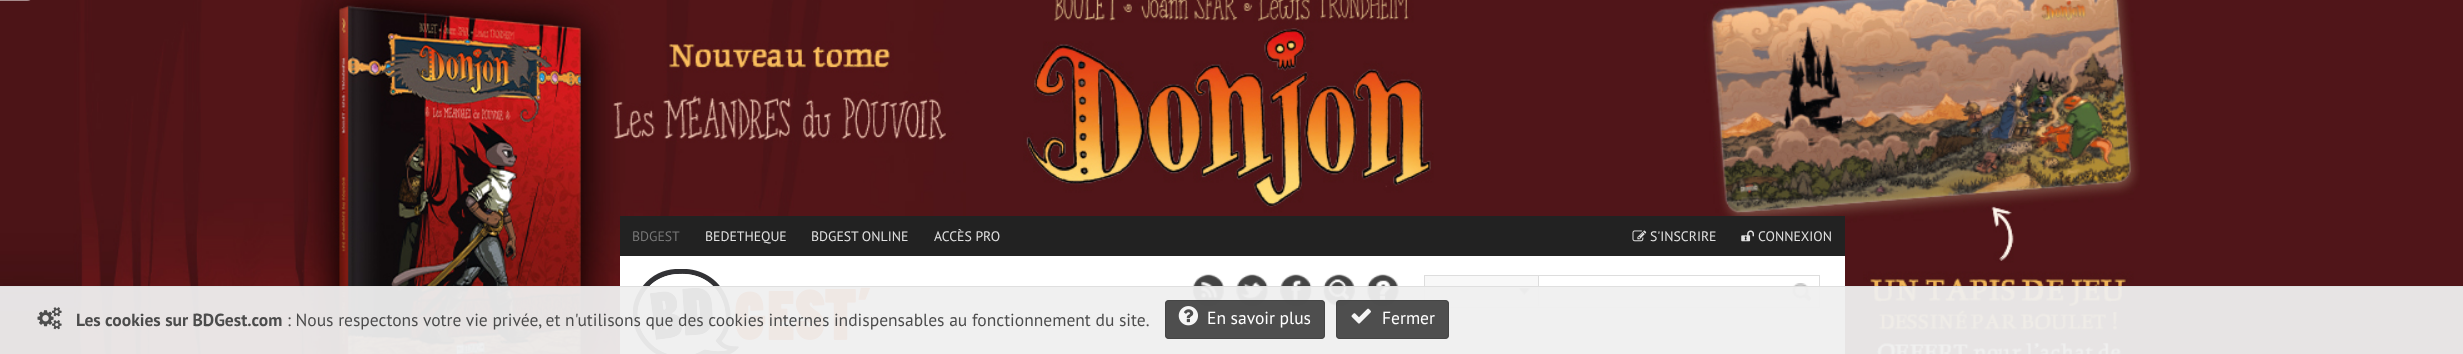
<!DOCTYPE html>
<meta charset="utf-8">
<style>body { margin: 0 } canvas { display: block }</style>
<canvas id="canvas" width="2463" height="354"></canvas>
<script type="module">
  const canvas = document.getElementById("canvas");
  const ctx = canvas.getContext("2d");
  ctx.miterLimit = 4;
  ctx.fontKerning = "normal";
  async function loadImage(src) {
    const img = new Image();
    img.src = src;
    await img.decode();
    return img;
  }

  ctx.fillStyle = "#501519";
  ctx.fillRect(0, 0, 2463, 354);
  ctx.drawImage(await loadImage("img1.png"), 0, 0, 2140, 354);
  ctx.fillStyle = "#a68a8b";
  ctx.beginPath();
  ctx.moveTo(0, -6);
  ctx.lineTo(33, -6);
  ctx.lineTo(33, -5);
  ctx.bezierCurveTo(33, -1.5, 30.5, 1, 27, 1);
  ctx.lineTo(0, 1);
  ctx.closePath();
  ctx.fill();
  ctx.fillStyle = "#ffffff";
  ctx.fillRect(620, 256, 1225, 98);
  ctx.fillStyle = "#222222";
  ctx.fillRect(620, 216, 1225, 40);
  ctx.font = "13.75px PT Sans";
  ctx.fillStyle = "#777777";
  ctx.fillText("BDGEST", 632, 241);
  ctx.fillStyle = "#e1e1e1";
  ctx.fillText("BEDETHEQUE", 705, 241);
  ctx.fillText("BDGEST ONLINE", 811, 241);
  ctx.fillText("ACCÈS PRO", 934, 241);
  ctx.drawImage(await loadImage("img2.png"), 1632, 230, 15, 12);
  ctx.fillText("S'INSCRIRE", 1650, 241);
  ctx.drawImage(await loadImage("img3.png"), 1741, 230, 13, 12);
  ctx.fillText("CONNEXION", 1758, 241);
  ctx.drawImage(await loadImage("img4.png"), 633, 269, 237, 85);
  ctx.drawImage(await loadImage("img5.png"), 1192, 274, 32, 32);
  ctx.drawImage(await loadImage("img6.png"), 1236, 274, 32, 32);
  ctx.drawImage(await loadImage("img7.png"), 1280, 274, 32, 32);
  ctx.drawImage(await loadImage("img8.png"), 1323, 274, 32, 32);
  ctx.drawImage(await loadImage("img9.png"), 1367, 274, 32, 32);
  ctx.strokeStyle = "#dddddd";
  ctx.strokeRect(1424.5, 275.5, 395, 32);
  ctx.fillStyle = "#f8f8f8";
  ctx.fillRect(1425, 276, 113, 30);
  ctx.fillStyle = "#dddddd";
  ctx.fillRect(1538, 276, 1, 30);
  ctx.drawImage(await loadImage("img10.png"), 1518, 288, 12, 7);
  ctx.drawImage(await loadImage("img11.png"), 1792, 283, 20, 18);
  ctx.fillStyle = "rgba(255, 255, 255, 0.2)";
  ctx.fillRect(1793, 284, 20, 1);
  ctx.fillStyle = "rgba(239, 239, 239, 0.95)";
  ctx.fillRect(0, 286, 2463, 68);
  ctx.fillStyle = "rgba(221, 221, 221, 0.95)";
  ctx.fillRect(0, 286, 2463, 1);
  ctx.drawImage(await loadImage("img12.png"), 37, 307, 25, 23);
  ctx.font = "bold 17.5px PT Sans";
  ctx.fillStyle = "#4c4c4c";
  ctx.fillText("Les cookies sur BDGest.com", 76, 326);
  ctx.font = "17.5px PT Sans";
  ctx.fillText(": Nous respectons votre vie privée, et n'utilisons que des cookies internes indispensables au fonctionnement du site.", 287, 326);
  ctx.fillStyle = "rgba(68, 68, 68, 0.95)";
  ctx.beginPath();
  ctx.roundRect(1165, 300, 160, 39, 4);
  ctx.fill();
  ctx.beginPath();
  ctx.roundRect(1165.5, 300.5, 159, 38, 3.5);
  ctx.strokeStyle = "rgba(68, 68, 68, 0.95)";
  ctx.stroke();
  ctx.drawImage(await loadImage("img13.png"), 1178, 306, 20, 20);
  ctx.fillStyle = "#ffffff";
  ctx.fillText("En savoir plus", 1207, 324);
  ctx.fillStyle = "rgba(68, 68, 68, 0.95)";
  ctx.beginPath();
  ctx.roundRect(1336, 300, 113, 39, 4);
  ctx.fill();
  ctx.beginPath();
  ctx.roundRect(1336.5, 300.5, 112, 38, 3.5);
  ctx.stroke();
  ctx.drawImage(await loadImage("img14.png"), 1351, 308, 20, 16);
  ctx.fillStyle = "#ffffff";
  ctx.fillText("Fermer", 1382, 324);
</script>
